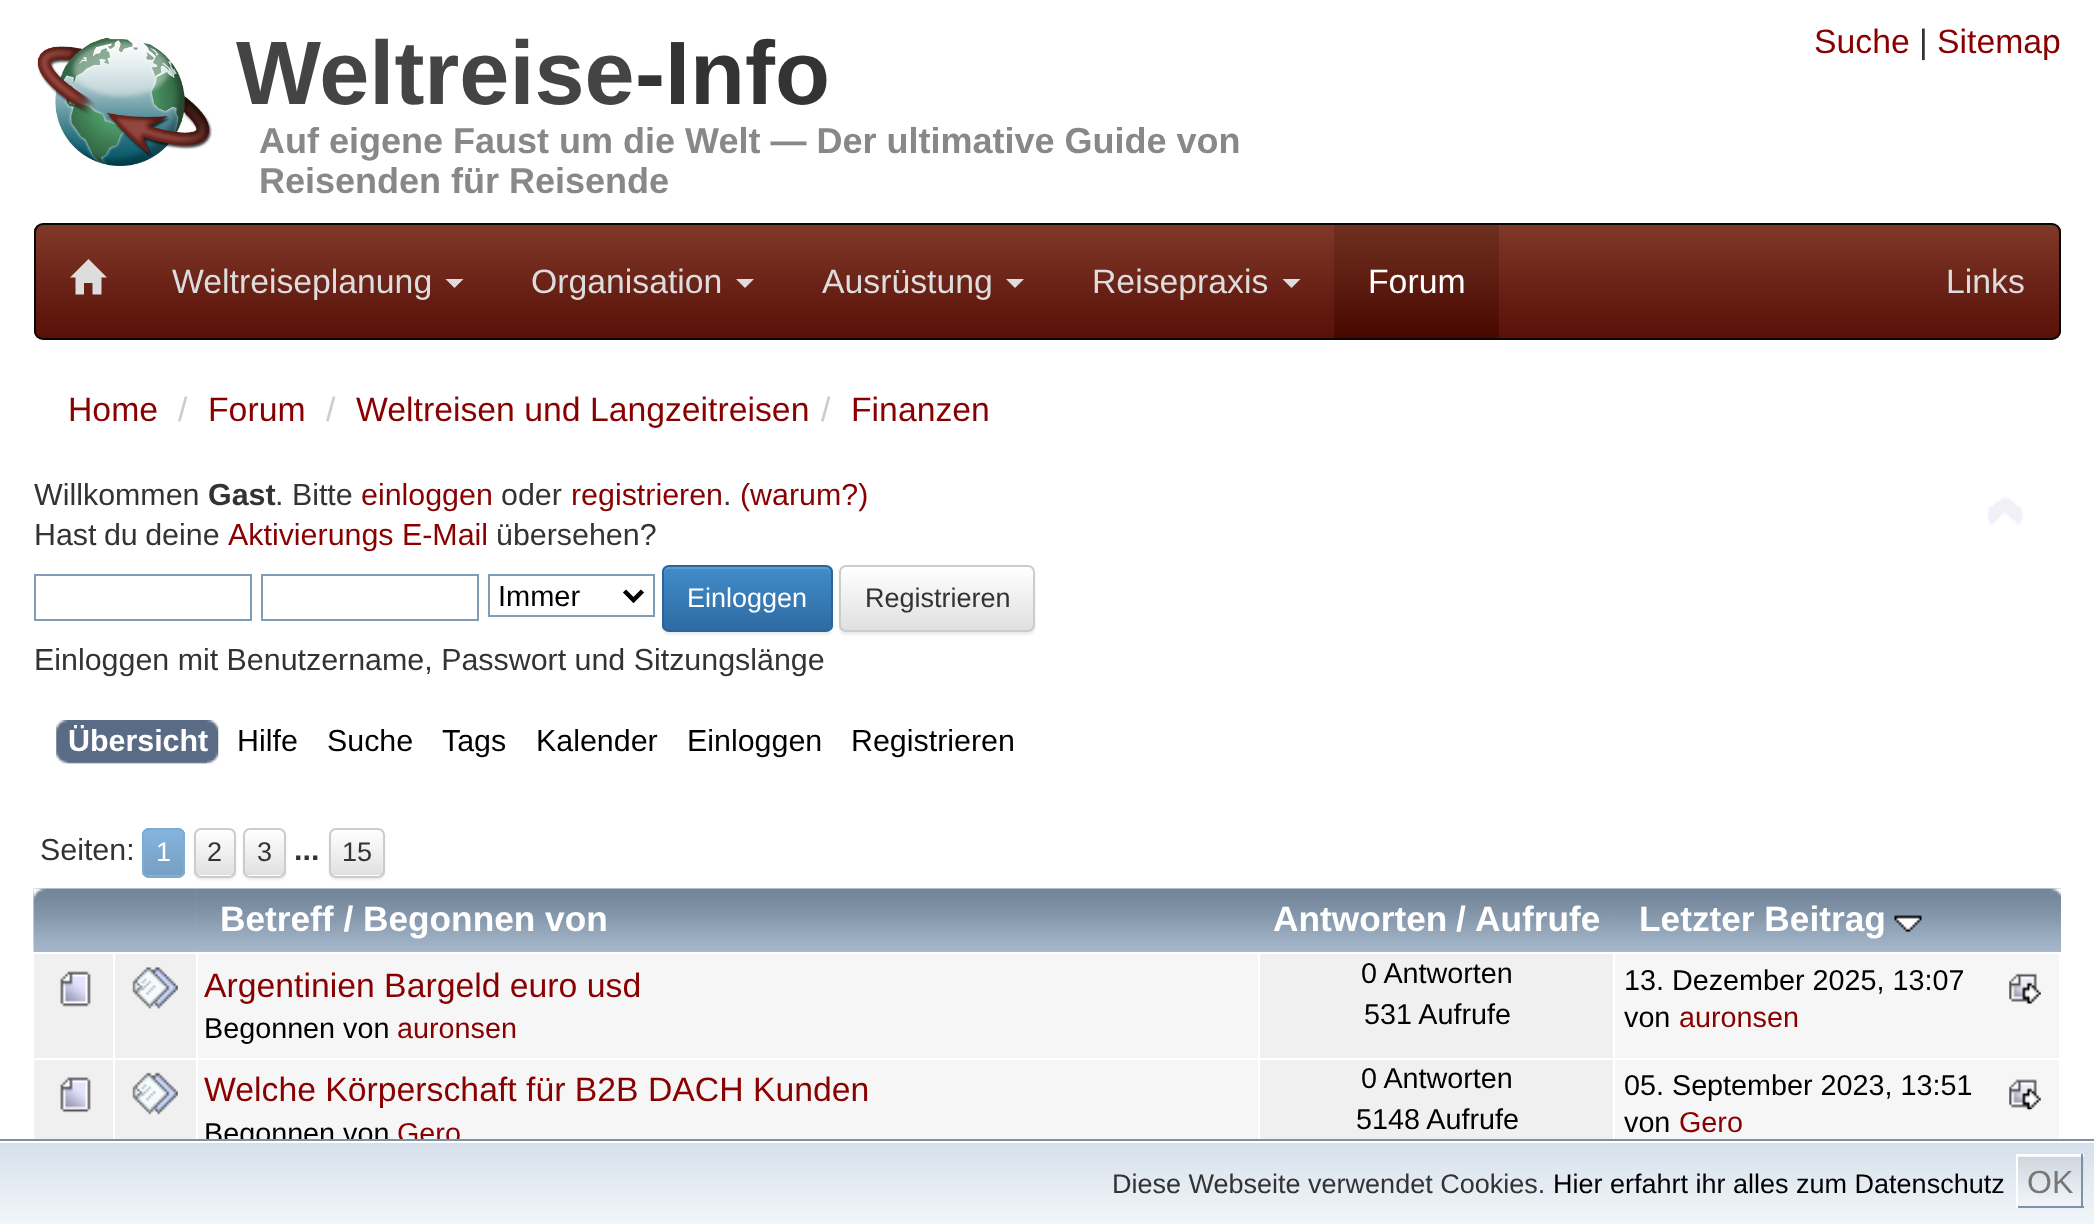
<!DOCTYPE html>
<meta charset="utf-8">
<style>body { margin: 0 } canvas { display: block }</style>
<canvas id="canvas" width="2094" height="1224"></canvas>
<script type="module">
  const canvas = document.getElementById("canvas");
  const ctx = canvas.getContext("2d");
  ctx.miterLimit = 4;
  ctx.fontKerning = "normal";
  async function loadImage(src) {
    const img = new Image();
    img.src = src;
    await img.decode();
    return img;
  }
  let gradient;

  ctx.fillStyle = "#ffffff";
  ctx.fillRect(0, 0, 2094, 1224);
  ctx.drawImage(await loadImage("img1.png"), 37, 37, 176, 129);
  ctx.font = "bold 90px Liberation Sans";
  ctx.fillStyle = "#444444";
  ctx.fillText("Weltreise", 236, 104);
  ctx.fillStyle = "#333333";
  ctx.fillText("-Info", 635, 104);
  ctx.font = "bold 36px Liberation Sans";
  ctx.fillStyle = "#888888";
  ctx.fillText("Auf eigene Faust um die Welt — Der ultimative Guide von", 259, 153);
  ctx.fillText("Reisenden für Reisende", 259, 193);
  ctx.font = "33.75px Liberation Sans";
  ctx.fillStyle = "#880000";
  ctx.fillText("Suche", 1814, 53);
  ctx.fillStyle = "#333333";
  ctx.fillText("|", 1919, 53);
  ctx.fillStyle = "#880000";
  ctx.fillText("Sitemap", 1937, 53);
  ctx.save();
  ctx.beginPath();
  ctx.roundRect(34, 223, 2027, 117, 9);
  ctx.clip();
  gradient = ctx.createLinearGradient(1047, 225, 1047, 338);
  gradient.addColorStop(0, "#803828");
  gradient.addColorStop(1, "#581008");
  ctx.fillStyle = gradient;
  ctx.fillRect(34, 225, 2027, 113);
  ctx.restore();
  ctx.beginPath();
  ctx.roundRect(35, 224, 2025, 115, 8);
  ctx.strokeStyle = "#080808";
  ctx.lineWidth = 2;
  ctx.stroke();
  ctx.fillStyle = "#dddddd";
  ctx.beginPath();
  ctx.moveTo(70, 277.5);
  ctx.lineTo(88.5, 259);
  ctx.lineTo(107, 277.5);
  ctx.lineTo(101.5, 277.5);
  ctx.lineTo(101.5, 294.5);
  ctx.lineTo(92.5, 294.5);
  ctx.lineTo(92.5, 283);
  ctx.lineTo(84, 283);
  ctx.lineTo(84, 294.5);
  ctx.lineTo(75.5, 294.5);
  ctx.lineTo(75.5, 277.5);
  ctx.closePath();
  ctx.fill();
  ctx.fillText("Weltreiseplanung", 172, 293);
  ctx.beginPath();
  ctx.moveTo(445.5, 279);
  ctx.lineTo(463.5, 279);
  ctx.lineTo(454.5, 288);
  ctx.closePath();
  ctx.fill();
  ctx.fillText("Organisation", 531, 293);
  ctx.beginPath();
  ctx.moveTo(736, 279);
  ctx.lineTo(754, 279);
  ctx.lineTo(745, 288);
  ctx.closePath();
  ctx.fill();
  ctx.fillText("Ausrüstung", 822, 293);
  ctx.beginPath();
  ctx.moveTo(1006, 279);
  ctx.lineTo(1024, 279);
  ctx.lineTo(1015, 288);
  ctx.closePath();
  ctx.fill();
  ctx.fillText("Reisepraxis", 1092, 293);
  ctx.beginPath();
  ctx.moveTo(1282.5, 279);
  ctx.lineTo(1300.5, 279);
  ctx.lineTo(1291.5, 288);
  ctx.closePath();
  ctx.fill();
  gradient = ctx.createLinearGradient(1416, 225, 1416, 338);
  gradient.addColorStop(0, "#703020");
  gradient.addColorStop(1, "#480800");
  ctx.fillStyle = gradient;
  ctx.fillRect(1334, 225, 165, 113);
  ctx.fillStyle = "#ffffff";
  ctx.fillText("Forum", 1368, 293);
  ctx.fillStyle = "#dddddd";
  ctx.fillText("Links", 1946, 293);
  ctx.fillStyle = "#880000";
  ctx.fillText("Home", 68, 421);
  ctx.fillStyle = "#cccccc";
  ctx.fillText("/", 178, 421);
  ctx.fillStyle = "#880000";
  ctx.fillText("Forum", 208, 421);
  ctx.fillStyle = "#cccccc";
  ctx.fillText("/", 326, 421);
  ctx.fillStyle = "#880000";
  ctx.fillText("Weltreisen und Langzeitreisen", 356, 421);
  ctx.fillStyle = "#cccccc";
  ctx.fillText("/", 821, 421);
  ctx.fillStyle = "#880000";
  ctx.fillText("Finanzen", 851, 421);
  ctx.font = "30.4px Liberation Sans";
  ctx.fillStyle = "#333333";
  ctx.fillText("Willkommen", 34, 505);
  ctx.font = "bold 30.4px Liberation Sans";
  ctx.fillText("Gast", 208, 505);
  ctx.font = "30.4px Liberation Sans";
  ctx.fillText(". Bitte", 275, 505);
  ctx.fillStyle = "#880000";
  ctx.fillText("einloggen", 361, 505);
  ctx.fillStyle = "#333333";
  ctx.fillText("oder", 501, 505);
  ctx.fillStyle = "#880000";
  ctx.fillText("registrieren", 571, 505);
  ctx.fillStyle = "#333333";
  ctx.fillText(".", 723, 505);
  ctx.fillStyle = "#880000";
  ctx.fillText("(warum?)", 740, 505);
  ctx.wordSpacing = "-1px";
  ctx.fillStyle = "#333333";
  ctx.fillText("Hast du deine", 34, 545);
  ctx.wordSpacing = "0px";
  ctx.fillStyle = "#880000";
  ctx.fillText("Aktivierungs E-Mail", 228, 545);
  ctx.fillStyle = "#333333";
  ctx.fillText("übersehen?", 496, 545);
  ctx.strokeStyle = "#7f9db9";
  ctx.strokeRect(35, 575, 216, 45);
  ctx.strokeRect(262, 575, 216, 45);
  ctx.strokeRect(489, 575, 165, 41);
  ctx.beginPath();
  ctx.moveTo(624.5, 591);
  ctx.lineTo(633.5, 600);
  ctx.lineTo(642.5, 591);
  ctx.strokeStyle = "#000000";
  ctx.lineWidth = 4.5;
  ctx.stroke();
  ctx.font = "29px Liberation Sans";
  ctx.fillStyle = "#000000";
  ctx.fillText("Immer", 498, 606);
  ctx.fillStyle = "rgba(0, 0, 0, 0.07)";
  ctx.filter = "blur(1px)";
  ctx.beginPath();
  ctx.roundRect(662, 567, 171, 68, 7);
  ctx.fill();
  ctx.filter = "none";
  ctx.save();
  ctx.beginPath();
  ctx.roundRect(662, 565, 171, 67, 7);
  ctx.clip();
  gradient = ctx.createLinearGradient(747, 567, 747, 630);
  gradient.addColorStop(0, "#428bca");
  gradient.addColorStop(1, "#2d6ca2");
  ctx.fillStyle = gradient;
  ctx.fillRect(662, 567, 171, 63);
  ctx.restore();
  ctx.fillStyle = "rgba(255, 255, 255, 0.15)";
  ctx.beginPath();
  ctx.moveTo(668, 569);
  ctx.lineTo(826, 569);
  ctx.bezierCurveTo(828, 569, 830, 571, 830, 574);
  ctx.lineTo(830, 572);
  ctx.bezierCurveTo(830, 569, 828, 567, 825, 567);
  ctx.lineTo(669, 567);
  ctx.bezierCurveTo(666, 567, 664, 569, 664, 572);
  ctx.lineTo(664, 574);
  ctx.bezierCurveTo(664, 571, 666, 569, 668, 569);
  ctx.closePath();
  ctx.fill();
  ctx.beginPath();
  ctx.roundRect(663, 566, 169, 65, 6);
  ctx.strokeStyle = "#2b669a";
  ctx.lineWidth = 2;
  ctx.stroke();
  ctx.font = "27px Liberation Sans";
  ctx.fillStyle = "#ffffff";
  ctx.fillText("Einloggen", 687, 607);
  ctx.fillStyle = "rgba(0, 0, 0, 0.07)";
  ctx.filter = "blur(1px)";
  ctx.beginPath();
  ctx.roundRect(839, 567, 196, 68, 7);
  ctx.fill();
  ctx.filter = "none";
  ctx.save();
  ctx.beginPath();
  ctx.roundRect(839, 565, 196, 67, 7);
  ctx.clip();
  gradient = ctx.createLinearGradient(937, 567, 937, 630);
  gradient.addColorStop(0, "#ffffff");
  gradient.addColorStop(1, "#e0e0e0");
  ctx.fillStyle = gradient;
  ctx.fillRect(839, 567, 196, 63);
  ctx.restore();
  ctx.beginPath();
  ctx.roundRect(840, 566, 194, 65, 6);
  ctx.strokeStyle = "#cccccc";
  ctx.stroke();
  ctx.fillStyle = "#333333";
  ctx.fillText("Registrieren", 865, 607);
  ctx.font = "30.4px Liberation Sans";
  ctx.fillText("Einloggen mit Benutzername, Passwort und Sitzungslänge", 34, 670);
  ctx.drawImage(await loadImage("img2.png"), 67, 720, 152, 44);
  ctx.drawImage(await loadImage("img3.png"), 56, 720, 151, 44);
  ctx.font = "bold 30.4px Liberation Sans";
  ctx.fillStyle = "#ffffff";
  ctx.fillText("Übersicht", 68, 751);
  ctx.font = "30.4px Liberation Sans";
  ctx.fillStyle = "#000000";
  ctx.fillText("Hilfe", 237, 751);
  ctx.fillText("Suche", 327, 751);
  ctx.fillText("Tags", 442, 751);
  ctx.fillText("Kalender", 536, 751);
  ctx.fillText("Einloggen", 687, 751);
  ctx.fillText("Registrieren", 851, 751);
  ctx.drawImage(await loadImage("img4.png"), 1987, 497, 36, 28);
  ctx.fillStyle = "#333333";
  ctx.fillText("Seiten:", 40, 860);
  ctx.fillStyle = "#84b4dd";
  ctx.beginPath();
  ctx.roundRect(142, 828, 43, 50, 7);
  ctx.fill();
  ctx.save();
  ctx.beginPath();
  ctx.roundRect(142, 828, 43, 50, 7);
  ctx.clip();
  gradient = ctx.createLinearGradient(163, 830, 163, 875);
  gradient.addColorStop(0, "#84b4dd");
  gradient.addColorStop(1, "#779fc3");
  ctx.fillStyle = gradient;
  ctx.fillRect(142, 830, 43, 45);
  ctx.restore();
  ctx.beginPath();
  ctx.roundRect(143, 829, 41, 48, 6);
  ctx.strokeStyle = "#7cabd4";
  ctx.stroke();
  ctx.font = "27px Liberation Sans";
  ctx.fillStyle = "#ffffff";
  ctx.fillText("1", 156, 861);
  ctx.fillStyle = "rgba(0, 0, 0, 0.07)";
  ctx.filter = "blur(1px)";
  ctx.beginPath();
  ctx.roundRect(194, 830, 42, 50, 7);
  ctx.fill();
  ctx.filter = "none";
  ctx.fillStyle = "#ffffff";
  ctx.beginPath();
  ctx.roundRect(194, 828, 42, 50, 7);
  ctx.fill();
  ctx.save();
  ctx.beginPath();
  ctx.roundRect(194, 828, 42, 50, 7);
  ctx.clip();
  gradient = ctx.createLinearGradient(215, 830, 215, 875);
  gradient.addColorStop(0, "#ffffff");
  gradient.addColorStop(1, "#e0e0e0");
  ctx.fillStyle = gradient;
  ctx.fillRect(194, 830, 42, 45);
  ctx.restore();
  ctx.beginPath();
  ctx.roundRect(195, 829, 40, 48, 6);
  ctx.strokeStyle = "#cccccc";
  ctx.stroke();
  ctx.fillStyle = "#333333";
  ctx.fillText("2", 207, 861);
  ctx.fillStyle = "rgba(0, 0, 0, 0.07)";
  ctx.filter = "blur(1px)";
  ctx.beginPath();
  ctx.roundRect(243, 830, 43, 50, 7);
  ctx.fill();
  ctx.filter = "none";
  ctx.fillStyle = "#ffffff";
  ctx.beginPath();
  ctx.roundRect(243, 828, 43, 50, 7);
  ctx.fill();
  ctx.save();
  ctx.beginPath();
  ctx.roundRect(243, 828, 43, 50, 7);
  ctx.clip();
  gradient = ctx.createLinearGradient(264, 830, 264, 875);
  gradient.addColorStop(0, "#ffffff");
  gradient.addColorStop(1, "#e0e0e0");
  ctx.fillStyle = gradient;
  ctx.fillRect(243, 830, 43, 45);
  ctx.restore();
  ctx.beginPath();
  ctx.roundRect(244, 829, 41, 48, 6);
  ctx.stroke();
  ctx.fillStyle = "#333333";
  ctx.fillText("3", 257, 861);
  ctx.font = "bold 30.4px Liberation Sans";
  ctx.fillText("...", 294, 860);
  ctx.fillStyle = "rgba(0, 0, 0, 0.07)";
  ctx.filter = "blur(1px)";
  ctx.beginPath();
  ctx.roundRect(329, 830, 56, 50, 7);
  ctx.fill();
  ctx.filter = "none";
  ctx.fillStyle = "#ffffff";
  ctx.beginPath();
  ctx.roundRect(329, 828, 56, 50, 7);
  ctx.fill();
  ctx.save();
  ctx.beginPath();
  ctx.roundRect(329, 828, 56, 50, 7);
  ctx.clip();
  gradient = ctx.createLinearGradient(357, 830, 357, 875);
  gradient.addColorStop(0, "#ffffff");
  gradient.addColorStop(1, "#e0e0e0");
  ctx.fillStyle = gradient;
  ctx.fillRect(329, 830, 56, 45);
  ctx.restore();
  ctx.fillStyle = "rgba(255, 255, 255, 0.15)";
  ctx.beginPath();
  ctx.moveTo(335, 832);
  ctx.lineTo(378, 832);
  ctx.bezierCurveTo(380, 832, 382, 835, 382, 837);
  ctx.lineTo(382, 873);
  ctx.bezierCurveTo(384, 871, 383, 867, 383, 864);
  ctx.lineTo(383, 852);
  ctx.bezierCurveTo(383, 825, 386, 830, 357, 830);
  ctx.lineTo(343, 830);
  ctx.bezierCurveTo(336, 830, 331, 829, 331, 837);
  ctx.bezierCurveTo(331, 835, 333, 832, 335, 832);
  ctx.closePath();
  ctx.fill();
  ctx.beginPath();
  ctx.roundRect(330, 829, 54, 48, 6);
  ctx.stroke();
  ctx.font = "27px Liberation Sans";
  ctx.fillStyle = "#333333";
  ctx.fillText("15", 342, 861);
  ctx.fillStyle = "#a7b9cd";
  ctx.fillRect(34, 889, 1579, 63);
  ctx.drawImage(await loadImage("img5.png"), 33, 888, 163, 64);
  ctx.drawImage(await loadImage("img6.png"), 195, 888, 1065, 62);
  ctx.font = "bold 35.25px Liberation Sans";
  ctx.fillStyle = "#ffffff";
  ctx.fillText("Betreff / Begonnen von", 220, 931);
  ctx.drawImage(await loadImage("img7.png"), 1260, 888, 354, 62);
  ctx.fillText("Antworten", 1273, 931);
  ctx.fillText("/", 1456, 931);
  ctx.fillText("Aufrufe", 1475, 931);
  ctx.fillStyle = "#a7b9cd";
  ctx.fillRect(1613, 889, 448, 63);
  ctx.drawImage(await loadImage("img8.png"), 1613, 888, 448, 62);
  ctx.fillStyle = "#ffffff";
  ctx.fillText("Letzter Beitrag", 1639, 931);
  ctx.drawImage(await loadImage("img9.png"), 1894, 915, 28, 18);
  ctx.fillStyle = "#f0f0f0";
  ctx.fillRect(34, 954, 79, 104);
  ctx.drawImage(await loadImage("img10.png"), 60, 971, 31, 36);
  ctx.fillRect(115, 954, 81, 104);
  ctx.drawImage(await loadImage("img11.png"), 132, 967, 46, 42);
  ctx.fillStyle = "#f6f6f6";
  ctx.fillRect(198, 954, 1060, 104);
  ctx.font = "33.75px Liberation Sans";
  ctx.fillStyle = "#880000";
  ctx.fillText("Argentinien Bargeld euro usd", 204, 997);
  ctx.font = "28.75px Liberation Sans";
  ctx.fillStyle = "#000000";
  ctx.fillText("Begonnen von", 204, 1038);
  ctx.fillStyle = "#880000";
  ctx.fillText("auronsen", 397, 1038);
  ctx.fillStyle = "#f0f0f0";
  ctx.fillRect(1260, 954, 353, 104);
  ctx.fillStyle = "#000000";
  ctx.fillText("0 Antworten", 1361, 983);
  ctx.fillText("531 Aufrufe", 1364, 1024);
  ctx.fillStyle = "#f6f6f6";
  ctx.fillRect(1615, 954, 444, 104);
  ctx.fillStyle = "#000000";
  ctx.fillText("13. Dezember 2025, 13:07", 1624, 990);
  ctx.drawImage(await loadImage("img12.png"), 2009, 973, 32, 31);
  ctx.fillText("von", 1624, 1027);
  ctx.fillStyle = "#880000";
  ctx.fillText("auronsen", 1679, 1027);
  ctx.fillStyle = "#f0f0f0";
  ctx.fillRect(34, 1060, 79, 79);
  ctx.drawImage(await loadImage("img13.png"), 60, 1077, 31, 36);
  ctx.fillRect(115, 1060, 81, 79);
  ctx.drawImage(await loadImage("img14.png"), 132, 1072, 46, 43);
  ctx.fillStyle = "#f6f6f6";
  ctx.fillRect(198, 1060, 1060, 79);
  ctx.font = "33.75px Liberation Sans";
  ctx.fillStyle = "#880000";
  ctx.fillText("Welche Körperschaft für B2B DACH Kunden", 204, 1101);
  ctx.font = "28.75px Liberation Sans";
  ctx.fillStyle = "#000000";
  ctx.fillText("Begonnen von", 204, 1143);
  ctx.fillStyle = "#880000";
  ctx.fillText("Gero", 397, 1143);
  ctx.fillStyle = "#f0f0f0";
  ctx.fillRect(1260, 1060, 353, 79);
  ctx.fillStyle = "#000000";
  ctx.fillText("0 Antworten", 1361, 1088);
  ctx.fillText("5148 Aufrufe", 1356, 1129);
  ctx.fillStyle = "#f6f6f6";
  ctx.fillRect(1615, 1060, 444, 79);
  ctx.fillStyle = "#000000";
  ctx.fillText("05. September 2023, 13:51", 1624, 1095);
  ctx.drawImage(await loadImage("img15.png"), 2009, 1079, 32, 31);
  ctx.fillText("von", 1624, 1132);
  ctx.fillStyle = "#880000";
  ctx.fillText("Gero", 1679, 1132);
  gradient = ctx.createLinearGradient(1047, 1143, 1047, 1224);
  gradient.addColorStop(0, "#d6e0eb");
  gradient.addColorStop(1, "#f2f6f9");
  ctx.fillStyle = gradient;
  ctx.fillRect(0, 1143, 2094, 81);
  ctx.fillStyle = "#ffffff";
  ctx.fillRect(206, 1141, 252, 2);
  ctx.strokeStyle = "#7b92a9";
  ctx.strokeRect(-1, 1140, 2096, 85);
  ctx.font = "27px Liberation Sans";
  ctx.fillStyle = "#333333";
  ctx.fillText("Diese Webseite verwendet Cookies.", 1112, 1193);
  ctx.fillStyle = "#000000";
  ctx.fillText("Hier erfahrt ihr alles zum Datenschutz", 1553, 1193);
  gradient = ctx.createLinearGradient(2018, 1107, 2018, 1157);
  gradient.addColorStop(0, "#ced6df");
  gradient.addColorStop(1, "#f2f6f9");
  ctx.fillStyle = gradient;
  ctx.fillRect(2016, 1156, 68, 1);
  gradient = ctx.createLinearGradient(2018, 1157, 2018, 1206);
  gradient.addColorStop(0, "#ced6df");
  gradient.addColorStop(1, "#f2f6f9");
  ctx.fillStyle = gradient;
  ctx.fillRect(2018, 1157, 66, 49);
  ctx.fillStyle = "#ffffff";
  ctx.fillRect(2016, 1154, 68, 2);
  ctx.fillStyle = "#7b92a9";
  ctx.fillRect(2081, 1154, 2, 54);
  ctx.fillRect(2016, 1206, 68, 2);
  ctx.fillStyle = "#ffffff";
  ctx.fillRect(2016, 1154, 2, 54);
  ctx.font = "32px Liberation Sans";
  ctx.fillStyle = "#777777";
  ctx.fillText("OK", 2027, 1193);
</script>
